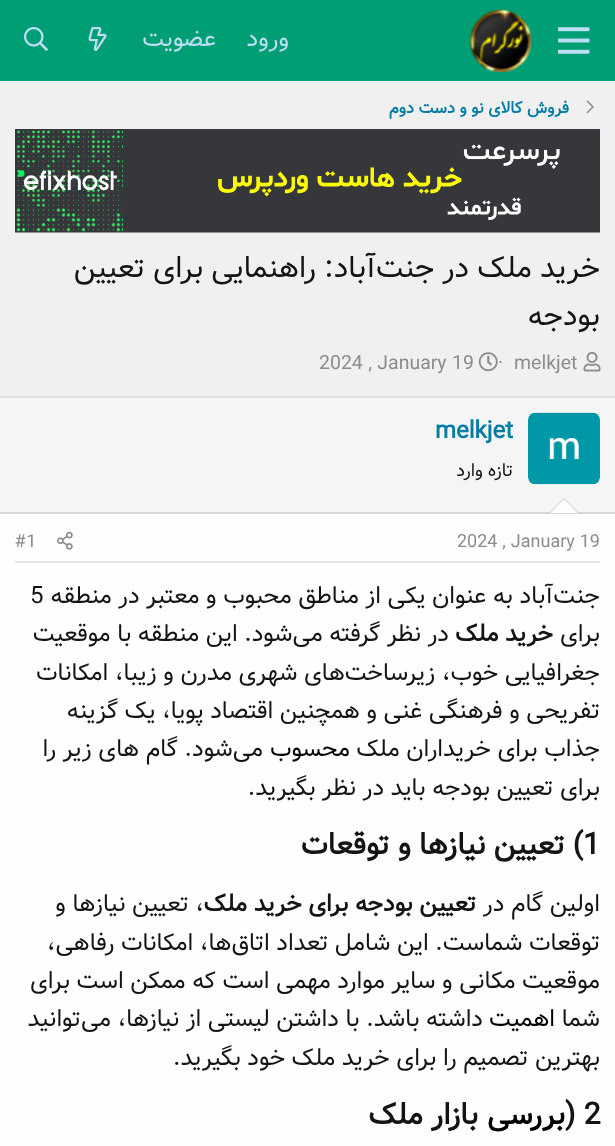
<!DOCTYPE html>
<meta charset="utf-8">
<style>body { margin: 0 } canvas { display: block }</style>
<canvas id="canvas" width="615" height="1146"></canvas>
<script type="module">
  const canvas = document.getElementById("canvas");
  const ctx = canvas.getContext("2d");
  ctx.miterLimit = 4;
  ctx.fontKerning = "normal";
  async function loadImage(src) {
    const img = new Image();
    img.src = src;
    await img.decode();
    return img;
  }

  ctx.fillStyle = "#f0f0f0";
  ctx.fillRect(0, 0, 615, 1146);
  ctx.fillStyle = "#009e74";
  ctx.fillRect(0, 0, 615, 81);
  ctx.drawImage(await loadImage("img1.png"), 558, 27, 32, 27);
  ctx.drawImage(await loadImage("img2.png"), 469, 9, 63, 63);
  ctx.direction = "rtl";
  ctx.font = "24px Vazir";
  ctx.fillStyle = "#bcdef5";
  ctx.fillText("ورود", 289, 46);
  ctx.fillText("عضویت", 216, 46);
  ctx.drawImage(await loadImage("img3.png"), 88, 27, 19, 24);
  ctx.drawImage(await loadImage("img4.png"), 24, 27, 24, 24);
  ctx.drawImage(await loadImage("img5.png"), 586, 100, 8, 14);
  ctx.font = "bold 16.5px Vazir";
  ctx.fillStyle = "#037da6";
  ctx.fillText("فروش کالای نو و دست دوم", 569, 113);
  ctx.drawImage(await loadImage("img6.png"), 15, 129, 585, 104);
  ctx.font = "30px Vazir";
  ctx.fillStyle = "#141414";
  ctx.fillText("خرید ملک در جنت‌آباد: راهنمایی برای تعیین", 600, 277);
  ctx.fillText("بودجه", 600, 325);
  ctx.drawImage(await loadImage("img7.png"), 583, 352, 18, 20);
  ctx.direction = "ltr";
  ctx.font = "19.5px Vazir";
  ctx.fillStyle = "#8c8c8c";
  ctx.fillText("melkjet", 514, 369);
  ctx.fillText("·", 498, 369);
  ctx.drawImage(await loadImage("img8.png"), 478, 352, 20, 20);
  ctx.fillText("2024 , January 19", 319, 369);
  ctx.fillStyle = "#fefefe";
  ctx.fillRect(0, 514, 615, 632);
  ctx.fillStyle = "#dfdfdf";
  ctx.fillRect(0, 396, 615, 2);
  ctx.fillStyle = "#f5f5f5";
  ctx.fillRect(0, 398, 615, 114);
  ctx.fillStyle = "#d8d8d8";
  ctx.fillRect(0, 512, 615, 2);
  ctx.fillStyle = "#fefefe";
  ctx.beginPath();
  ctx.roundRect(528, 413, 72, 72, 8);
  ctx.fill();
  ctx.drawImage(await loadImage("img9.png"), 528, 412, 72, 73);
  ctx.font = "bold 24px Vazir";
  ctx.fillStyle = "#037da6";
  ctx.fillText("melkjet", 435, 438);
  ctx.direction = "rtl";
  ctx.font = "18px Vazir";
  ctx.fillStyle = "#141414";
  ctx.fillText("تازه وارد", 513, 476);
  ctx.fillStyle = "#d8d8d8";
  ctx.beginPath();
  ctx.moveTo(579, 513);
  ctx.lineTo(549, 513);
  ctx.lineTo(564, 498);
  ctx.closePath();
  ctx.fill();
  ctx.fillStyle = "#fefefe";
  ctx.beginPath();
  ctx.moveTo(577.5, 513);
  ctx.lineTo(550.5, 513);
  ctx.lineTo(564, 499.5);
  ctx.closePath();
  ctx.fill();
  ctx.fillStyle = "#e7e7e7";
  ctx.fillRect(15, 561, 585, 2);
  ctx.direction = "ltr";
  ctx.fillStyle = "#8c8c8c";
  ctx.fillText("2024 , January 19", 457, 547);
  ctx.drawImage(await loadImage("img10.png"), 57, 531, 16, 19);
  ctx.fillText("#1", 15, 547);
  ctx.direction = "rtl";
  ctx.font = "24px Vazir";
  ctx.fillStyle = "#141414";
  ctx.fillText("جنت‌آباد به عنوان یکی از مناطق محبوب و معتبر در منطقه", 600, 603);
  ctx.direction = "ltr";
  ctx.fillText("5", 30, 603);
  ctx.direction = "rtl";
  ctx.fillText("برای", 600, 641);
  ctx.font = "bold 24px Vazir";
  ctx.fillText("خرید ملک", 553, 641);
  ctx.font = "24px Vazir";
  ctx.fillText("در نظر گرفته می‌شود. این منطقه با موقعیت", 449, 641);
  ctx.fillText("جغرافیایی خوب، زیرساخت‌های شهری مدرن و زیبا، امکانات", 600, 680);
  ctx.fillText("تفریحی و فرهنگی غنی و همچنین اقتصاد پویا، یک گزینه", 600, 718);
  ctx.fillText("جذاب برای خریداران ملک", 600, 756);
  ctx.fillStyle = "#000000";
  ctx.fillText("محسوب", 350, 756);
  ctx.fillStyle = "#141414";
  ctx.fillText("می‌شود. گام های زیر را", 263, 756);
  ctx.fillText("برای تعیین بودجه باید در نظر بگیرید.", 600, 795);
  ctx.direction = "ltr";
  ctx.font = "bold 30px Vazir";
  ctx.fillText("1", 583, 854);
  ctx.direction = "rtl";
  ctx.fillText(") تعیین نیازها و توقعات", 583, 854);
  ctx.font = "24px Vazir";
  ctx.fillText("اولین گام در", 600, 911);
  ctx.font = "bold 24px Vazir";
  ctx.fillText("تعیین بودجه برای خرید ملک", 476, 911);
  ctx.font = "24px Vazir";
  ctx.fillText("، تعیین نیازها و", 204, 911);
  ctx.fillText("توقعات شماست. این شامل تعداد اتاق‌ها، امکانات رفاهی،", 600, 950);
  ctx.fillText("موقعیت مکانی و سایر موارد مهمی است که ممکن است برای", 600, 988);
  ctx.fillText("شما", 600, 1026);
  ctx.fillStyle = "#000000";
  ctx.fillText("اهمیت", 555, 1026);
  ctx.fillStyle = "#141414";
  ctx.fillText("داشته باشد. با داشتن لیستی از نیازها، می‌توانید", 483, 1026);
  ctx.fillText("بهترین تصمیم را برای خرید ملک خود بگیرید.", 600, 1065);
  ctx.direction = "ltr";
  ctx.font = "bold 30px Vazir";
  ctx.fillText(") 2", 565, 1124);
  ctx.direction = "rtl";
  ctx.fillStyle = "#000000";
  ctx.fillText("بررسی", 565, 1124);
  ctx.fillStyle = "#141414";
  ctx.fillText("بازار ملک", 478, 1124);
</script>
